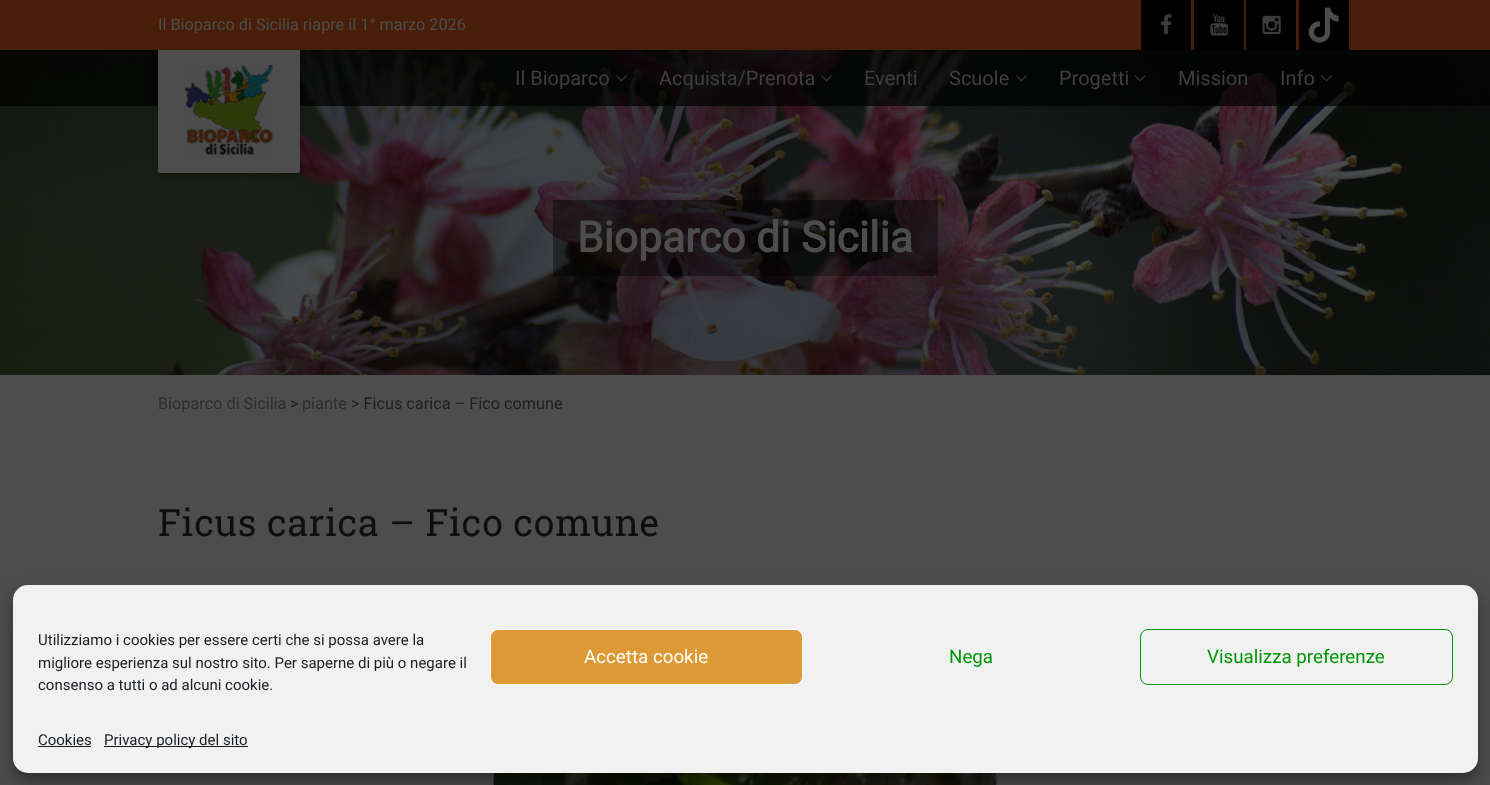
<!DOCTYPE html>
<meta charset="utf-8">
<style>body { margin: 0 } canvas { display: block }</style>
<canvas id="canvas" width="1490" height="785"></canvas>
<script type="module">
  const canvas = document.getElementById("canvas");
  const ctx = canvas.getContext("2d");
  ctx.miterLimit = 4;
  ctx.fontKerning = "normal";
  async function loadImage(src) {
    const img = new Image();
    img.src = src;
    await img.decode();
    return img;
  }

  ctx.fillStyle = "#4d4d4d";
  ctx.fillRect(0, 0, 1490, 785);
  ctx.fillStyle = "#491e09";
  ctx.fillRect(0, 0, 1490, 50);
  ctx.font = "16.25px Roboto";
  ctx.fillStyle = "#4d4d4d";
  ctx.fillText("Il Bioparco di Sicilia riapre il 1° marzo 2026", 158, 30);
  ctx.fillStyle = "#000000";
  ctx.fillRect(1141, 0, 50, 50);
  ctx.drawImage(await loadImage("img1.png"), 1161, 14, 11, 20);
  ctx.fillRect(1194, 0, 50, 50);
  ctx.drawImage(await loadImage("img2.png"), 1210, 14, 18, 22);
  ctx.fillRect(1246, 0, 50, 50);
  ctx.drawImage(await loadImage("img3.png"), 1262, 15, 19, 19);
  ctx.fillRect(1299, 0, 50, 50);
  ctx.drawImage(await loadImage("img4.png"), 1298, 6, 42, 39);
  ctx.drawImage(await loadImage("img11.png"), 0, 50, 1490, 325);
  ctx.fillStyle = "rgba(0, 0, 0, 0.7)";
  ctx.fillRect(0, 50, 1490, 56);
  ctx.fillStyle = "rgba(0, 0, 0, 0.2)";
  ctx.filter = "blur(3px)";
  ctx.beginPath();
  ctx.roundRect(158, 54, 142, 122, 2.5);
  ctx.fill();
  ctx.filter = "none";
  ctx.fillStyle = "#4d4d4d";
  ctx.beginPath();
  ctx.roundRect(158, 50, 142, 123, [0, 0, 2.5, 2.5]);
  ctx.fill();
  ctx.drawImage(await loadImage("img5.png"), 185, 65, 88, 91);
  ctx.font = "20px Roboto";
  ctx.fillStyle = "#3e3f3e";
  ctx.fillText("Il Bioparco", 515, 85);
  ctx.drawImage(await loadImage("img6.png"), 615, 75, 12, 7);
  ctx.fillText("Acquista/Prenota", 659, 85);
  ctx.drawImage(await loadImage("img7.png"), 820, 75, 12, 7);
  ctx.fillText("Eventi", 864, 85);
  ctx.fillText("Scuole", 949, 85);
  ctx.drawImage(await loadImage("img8.png"), 1015, 75, 12, 7);
  ctx.fillText("Progetti", 1059, 85);
  ctx.drawImage(await loadImage("img9.png"), 1134, 75, 12, 7);
  ctx.fillText("Mission", 1178, 85);
  ctx.fillText("Info", 1280, 85);
  ctx.drawImage(await loadImage("img10.png"), 1320, 75, 12, 7);
  ctx.fillStyle = "rgba(0, 0, 0, 0.4)";
  ctx.fillRect(553, 200, 385, 76);
  ctx.font = "bold 42.5px Roboto";
  ctx.fillStyle = "#4d4d4d";
  ctx.fillText("Bioparco di Sicilia", 577, 252);
  ctx.font = "16.25px Roboto";
  ctx.fillStyle = "#2e2e2e";
  ctx.fillText("Bioparco di Sicilia", 158, 409);
  ctx.fillStyle = "#1f1f1f";
  ctx.fillText(">", 290, 409);
  ctx.fillStyle = "#2e2e2e";
  ctx.fillText("piante", 302, 409);
  ctx.fillStyle = "#1f1f1f";
  ctx.fillText("> Ficus carica – Fico comune", 351, 409);
  ctx.letterSpacing = "0.6px";
  ctx.font = "37.5px Roboto Slab";
  ctx.fillStyle = "#0f0f0f";
  ctx.fillText("Ficus carica – Fico comune", 158, 536);
  ctx.drawImage(await loadImage("img12.png"), 493, 773, 504, 12);
  ctx.fillStyle = "rgba(0, 0, 0, 0.23)";
  ctx.filter = "blur(4px)";
  ctx.beginPath();
  ctx.roundRect(13, 593, 1465, 187, 15);
  ctx.fill();
  ctx.filter = "none";
  ctx.fillStyle = "rgba(0, 0, 0, 0.19)";
  ctx.filter = "blur(12.5px)";
  ctx.beginPath();
  ctx.roundRect(13, 598, 1465, 187, 15);
  ctx.fill();
  ctx.filter = "none";
  ctx.fillStyle = "#f1f1f1";
  ctx.beginPath();
  ctx.roundRect(13, 585, 1465, 188, 15);
  ctx.fill();
  ctx.letterSpacing = "0px";
  ctx.font = "15px Roboto";
  ctx.fillStyle = "#191e23";
  ctx.fillText("Utilizziamo i cookies per essere certi che si possa avere la", 38, 645);
  ctx.fillText("migliore esperienza sul nostro sito. Per saperne di più o negare il", 38, 668);
  ctx.fillText("consenso a tutti o ad alcuni cookie.", 38, 690);
  ctx.fillStyle = "#dd9933";
  ctx.beginPath();
  ctx.roundRect(490.5, 629.5, 312, 55, 7.5);
  ctx.fill();
  ctx.strokeStyle = "#ffffff";
  ctx.stroke();
  ctx.font = "18.75px Roboto";
  ctx.fillStyle = "#ffffff";
  ctx.fillText("Accetta cookie", 584, 663);
  ctx.fillStyle = "#009607";
  ctx.fillText("Nega", 949, 663);
  ctx.beginPath();
  ctx.roundRect(1140.5, 629.5, 312, 55, 7.5);
  ctx.strokeStyle = "#009607";
  ctx.stroke();
  ctx.fillText("Visualizza preferenze", 1207, 663);
  ctx.font = "15px Roboto";
  ctx.fillStyle = "#191e23";
  ctx.fillText("Cookies", 38, 745);
  ctx.fillRect(38, 746, 53, 1);
  ctx.fillRect(104, 746, 144, 1);
  ctx.fillText("Privacy policy del sito", 104, 745);
</script>
